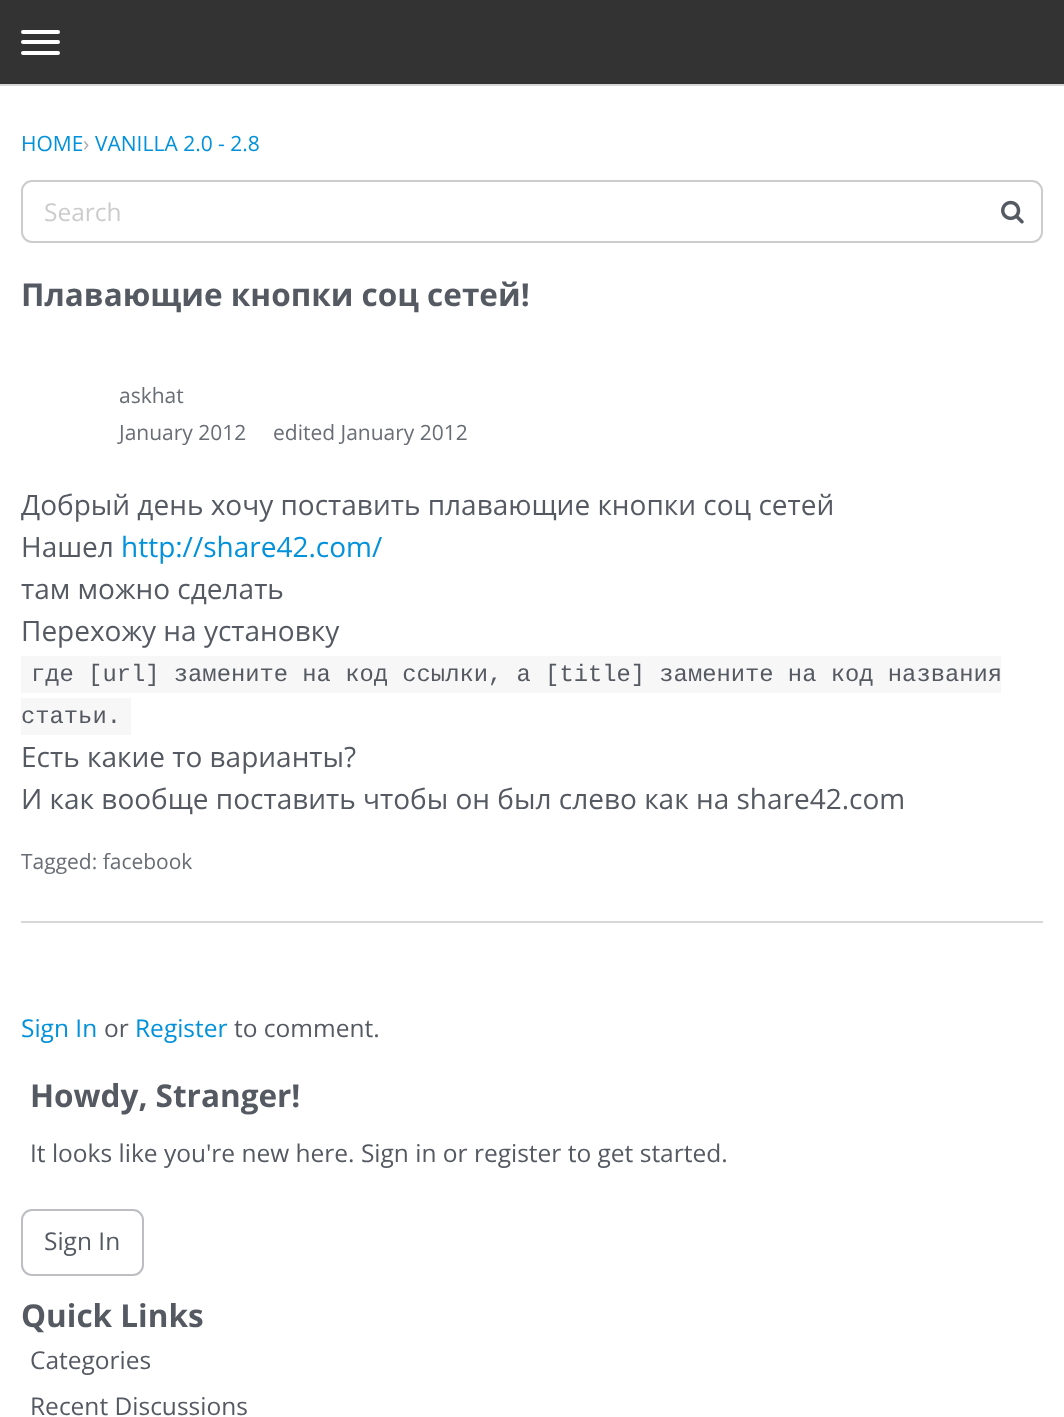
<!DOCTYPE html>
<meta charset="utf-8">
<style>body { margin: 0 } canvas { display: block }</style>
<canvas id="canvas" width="1064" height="1417"></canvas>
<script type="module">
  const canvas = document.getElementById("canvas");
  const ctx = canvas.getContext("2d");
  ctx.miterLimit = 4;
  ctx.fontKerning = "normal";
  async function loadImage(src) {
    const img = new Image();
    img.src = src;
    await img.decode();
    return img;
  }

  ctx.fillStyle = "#ffffff";
  ctx.fillRect(0, 0, 1064, 1417);
  ctx.fillStyle = "#333333";
  ctx.fillRect(0, 0, 1064, 84);
  ctx.fillStyle = "#d6d7d9";
  ctx.fillRect(0, 84, 1064, 2);
  ctx.fillStyle = "#ffffff";
  ctx.beginPath();
  ctx.roundRect(21, 40, 39, 4, 2);
  ctx.fill();
  ctx.beginPath();
  ctx.roundRect(21, 30, 39, 4, 2);
  ctx.fill();
  ctx.beginPath();
  ctx.roundRect(21, 51, 39, 4, 2);
  ctx.fill();
  ctx.font = "21px Open Sans";
  ctx.fillStyle = "#0291db";
  ctx.fillText("HOME", 21, 151);
  ctx.fillStyle = "#aaadb1";
  ctx.fillText("›", 83, 151);
  ctx.fillStyle = "#0291db";
  ctx.fillText("VANILLA 2.0 - 2.8", 95, 151);
  ctx.beginPath();
  ctx.roundRect(22, 181, 1020, 61, 10);
  ctx.strokeStyle = "#cccccc";
  ctx.lineWidth = 2;
  ctx.stroke();
  ctx.font = "24.5px Open Sans";
  ctx.fillStyle = "#cccccc";
  ctx.fillText("Search", 44, 221);
  ctx.drawImage(await loadImage("img1.png"), 1001, 200, 23, 24);
  ctx.font = "bold 31.5px Open Sans";
  ctx.fillStyle = "#555a62";
  ctx.fillText("Плавающие кнопки соц сетей!", 21, 306);
  ctx.fillStyle = "#d6d7d9";
  ctx.fillRect(21, 921, 1022, 2);
  ctx.font = "21px Open Sans";
  ctx.fillStyle = "#696e75";
  ctx.fillText("askhat", 119, 403);
  ctx.fillText("January 2012", 119, 440);
  ctx.fillText("edited January 2012", 273, 440);
  ctx.font = "28px Open Sans";
  ctx.fillStyle = "#555a62";
  ctx.fillText("Добрый день хочу поставить плавающие кнопки соц сетей", 21, 515);
  ctx.fillText("Нашел", 21, 557);
  ctx.fillStyle = "#0291db";
  ctx.fillText("http://share42.com/", 121, 557);
  ctx.fillStyle = "#555a62";
  ctx.fillText("там можно сделать", 21, 599);
  ctx.fillText("Перехожу на установку", 21, 641);
  ctx.fillStyle = "#f7f7f7";
  ctx.fillRect(21, 656, 980, 37);
  ctx.font = "23.8px Liberation Mono";
  ctx.fillStyle = "#555a62";
  ctx.fillText("где [url] замените на код ссылки, а [title] замените на код названия", 31, 681);
  ctx.fillStyle = "#f7f7f7";
  ctx.fillRect(21, 698, 110, 37);
  ctx.fillStyle = "#555a62";
  ctx.fillText("статьи.", 21, 723);
  ctx.font = "28px Open Sans";
  ctx.fillText("Есть какие то варианты?", 21, 767);
  ctx.fillText("И как вообще поставить чтобы он был слево как на share42.com", 21, 809);
  ctx.font = "21px Open Sans";
  ctx.fillStyle = "#696e75";
  ctx.fillText("Tagged: facebook", 21, 869);
  ctx.font = "24.5px Open Sans";
  ctx.fillStyle = "#0291db";
  ctx.fillText("Sign In", 21, 1037);
  ctx.fillStyle = "#555a62";
  ctx.fillText("or", 104, 1037);
  ctx.fillStyle = "#0291db";
  ctx.fillText("Register", 135, 1037);
  ctx.fillStyle = "#555a62";
  ctx.fillText("to comment.", 234, 1037);
  ctx.font = "bold 31.5px Open Sans";
  ctx.fillText("Howdy, Stranger!", 30, 1107);
  ctx.font = "24.5px Open Sans";
  ctx.fillText("It looks like you're new here. Sign in or register to get started.", 30, 1162);
  ctx.beginPath();
  ctx.roundRect(22, 1210, 121, 65, 10);
  ctx.strokeStyle = "#bcbec1";
  ctx.stroke();
  ctx.fillText("Sign In", 44, 1250);
  ctx.font = "bold 31.5px Open Sans";
  ctx.fillText("Quick Links", 21, 1327);
  ctx.font = "24.5px Open Sans";
  ctx.fillText("Categories", 30, 1369);
  ctx.fillText("Recent Discussions", 30, 1415);
</script>
